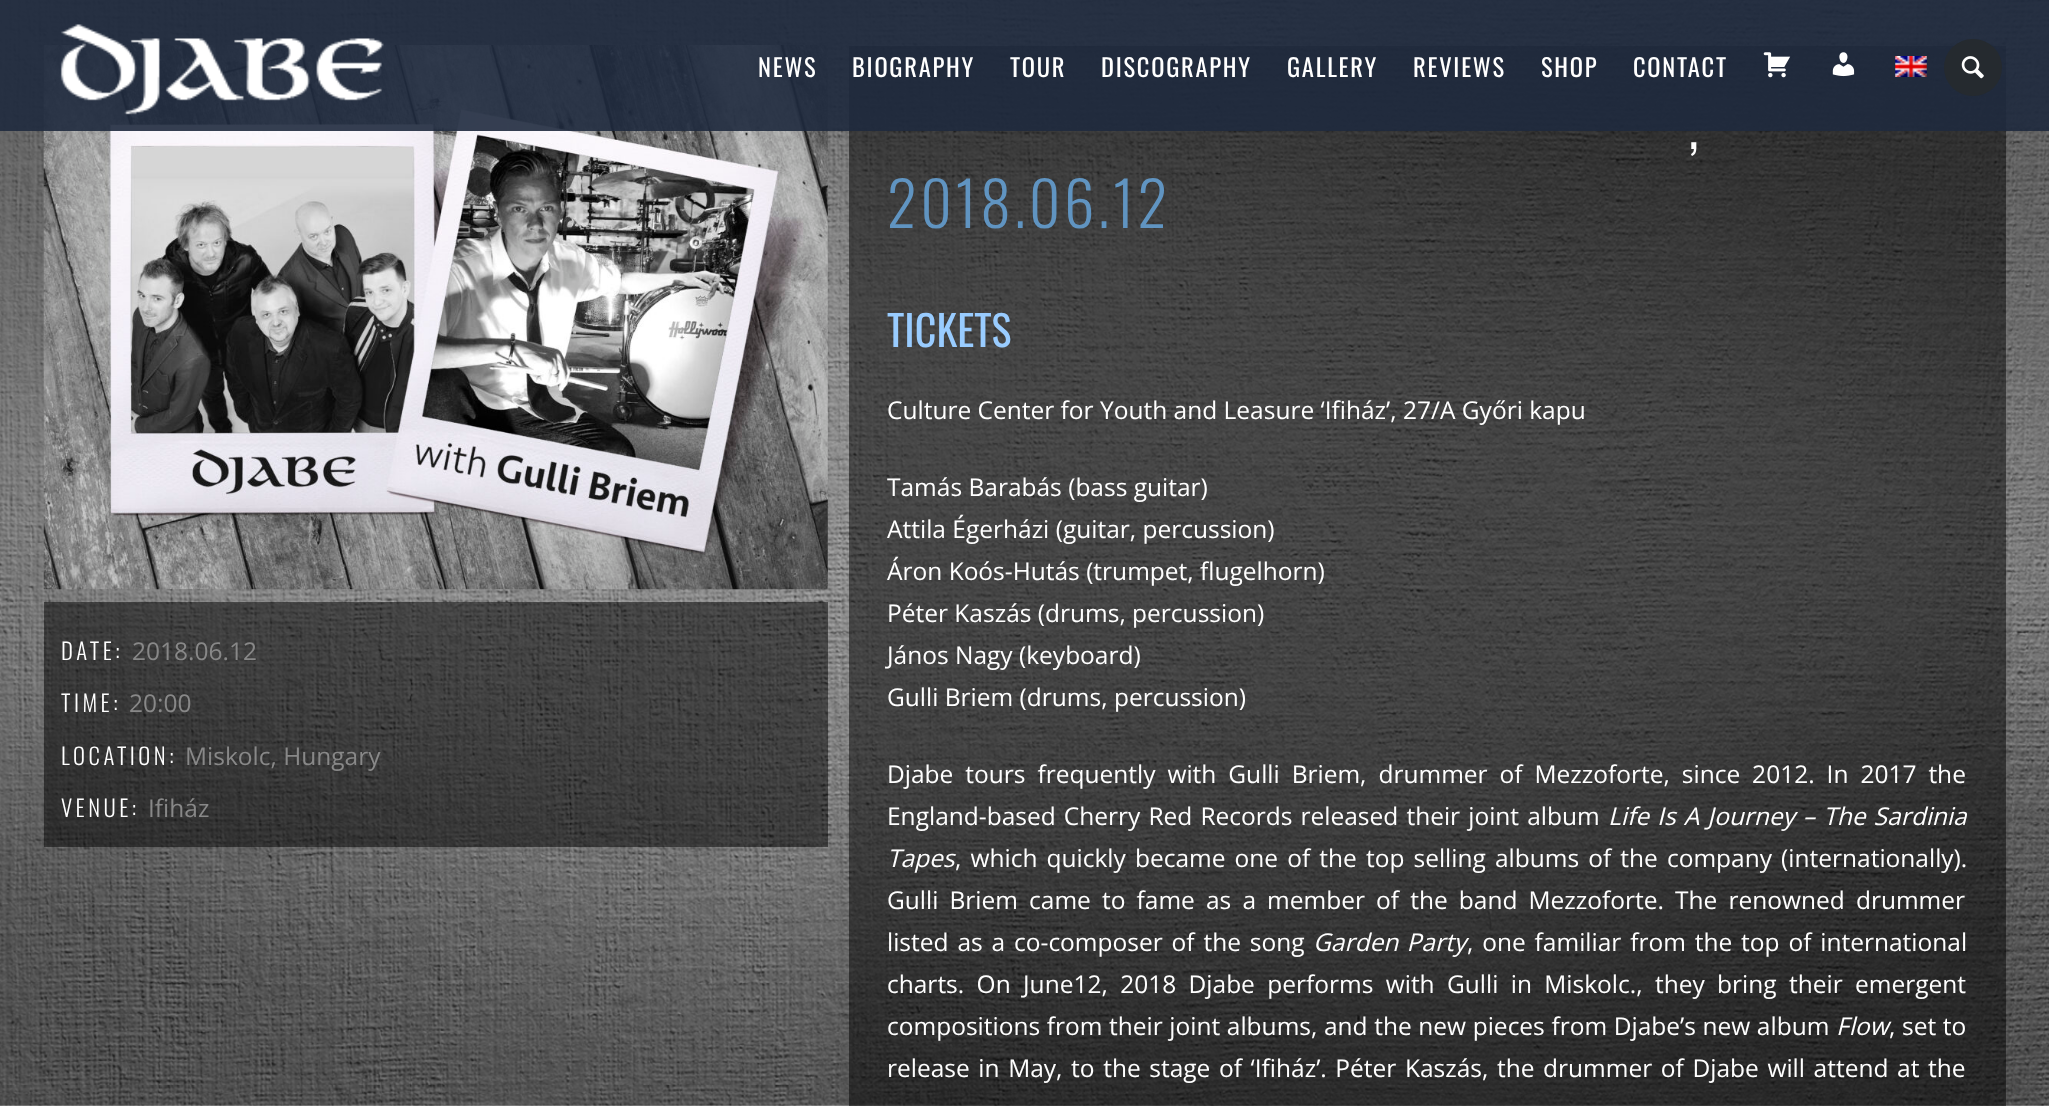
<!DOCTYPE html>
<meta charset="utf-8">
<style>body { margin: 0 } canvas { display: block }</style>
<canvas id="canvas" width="2049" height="1106"></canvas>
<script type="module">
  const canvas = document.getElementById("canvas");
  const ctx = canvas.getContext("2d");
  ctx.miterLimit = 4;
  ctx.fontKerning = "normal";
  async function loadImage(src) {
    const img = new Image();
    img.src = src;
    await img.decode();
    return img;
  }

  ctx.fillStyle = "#ffffff";
  ctx.fillRect(0, 0, 2049, 1106);
  ctx.drawImage(await loadImage("img1.png"), 0, 0, 2049, 1106);
  ctx.drawImage(await loadImage("img7.png"), 43, 45, 785, 545);
  ctx.fillStyle = "rgba(0, 0, 0, 0.5)";
  ctx.fillRect(849, 46, 1157, 1060);
  ctx.fillStyle = "rgba(31, 42, 62, 0.9)";
  ctx.fillRect(0, 0, 2049, 131);
  ctx.drawImage(await loadImage("img2.png"), 60, 24, 324, 91);
  ctx.letterSpacing = "1.75px";
  ctx.font = "24.5px Oswald";
  ctx.fillStyle = "#ffffff";
  ctx.fillText("NEWS", 758, 77);
  ctx.fillText("BIOGRAPHY", 852, 77);
  ctx.fillText("TOUR", 1010, 77);
  ctx.fillText("DISCOGRAPHY", 1101, 77);
  ctx.fillText("GALLERY", 1287, 77);
  ctx.fillText("REVIEWS", 1413, 77);
  ctx.fillText("SHOP", 1541, 77);
  ctx.fillText("CONTACT", 1633, 77);
  ctx.drawImage(await loadImage("img3.png"), 1763, 52, 28, 26);
  ctx.drawImage(await loadImage("img4.png"), 1832, 52, 23, 25);
  ctx.drawImage(await loadImage("img5.png"), 1895, 56, 32, 21);
  ctx.fillStyle = "#252a2f";
  ctx.beginPath();
  ctx.roundRect(1944, 39, 58, 57, 28.5);
  ctx.fill();
  ctx.drawImage(await loadImage("img6.png"), 1961, 56, 23, 23);
  ctx.fillStyle = "rgba(0, 0, 0, 0.5)";
  ctx.fillRect(44, 602, 784, 245);
  ctx.letterSpacing = "3.5px";
  ctx.font = "300 22.75px Oswald";
  ctx.fillStyle = "#ffffff";
  ctx.fillText("DATE:", 61, 660);
  ctx.letterSpacing = "0px";
  ctx.font = "24.5px Open Sans";
  ctx.fillStyle = "#888888";
  ctx.fillText("2018.06.12", 132, 660);
  ctx.letterSpacing = "3.5px";
  ctx.font = "300 22.75px Oswald";
  ctx.fillStyle = "#ffffff";
  ctx.fillText("TIME:", 61, 712);
  ctx.letterSpacing = "0px";
  ctx.font = "24.5px Open Sans";
  ctx.fillStyle = "#888888";
  ctx.fillText("20:00", 129, 712);
  ctx.letterSpacing = "3.5px";
  ctx.font = "300 22.75px Oswald";
  ctx.fillStyle = "#ffffff";
  ctx.fillText("LOCATION:", 61, 765);
  ctx.letterSpacing = "0px";
  ctx.font = "24.5px Open Sans";
  ctx.fillStyle = "#888888";
  ctx.fillText("Miskolc, Hungary", 185, 765);
  ctx.letterSpacing = "3.5px";
  ctx.font = "300 22.75px Oswald";
  ctx.fillStyle = "#ffffff";
  ctx.fillText("VENUE:", 61, 817);
  ctx.letterSpacing = "0px";
  ctx.font = "24.5px Open Sans";
  ctx.fillStyle = "#888888";
  ctx.fillText("Ifiház", 148, 817);
  ctx.font = "300 61.25px Oswald";
  ctx.fillStyle = "#ffffff";
  ctx.fillText(",", 1688, 149);
  ctx.letterSpacing = "3.5px";
  ctx.fillStyle = "#6094c1";
  ctx.fillText("2018.06.12", 887, 228);
  ctx.letterSpacing = "0px";
  ctx.font = "42px Oswald";
  ctx.fillStyle = "#99ccff";
  ctx.fillText("TICKETS", 887, 347);
  ctx.font = "24.5px Open Sans";
  ctx.fillStyle = "#ffffff";
  ctx.fillText("Culture Center for Youth and Leasure ‘Ifiház’, 27/A Győri kapu", 887, 419);
  ctx.fillText("Tamás Barabás (bass guitar)", 887, 496);
  ctx.fillText("Attila Égerházi (guitar, percussion)", 887, 538);
  ctx.fillText("Áron Koós-Hutás (trumpet, flugelhorn)", 887, 580);
  ctx.fillText("Péter Kaszás (drums, percussion)", 887, 622);
  ctx.fillText("János Nagy (keyboard)", 887, 664);
  ctx.fillText("Gulli Briem (drums, percussion)", 887, 706);
  ctx.wordSpacing = "5.6px";
  ctx.fillText("Djabe tours frequently with Gulli Briem, drummer of Mezzoforte, since 2012. In 2017 the", 887, 783);
  ctx.wordSpacing = "1.75px";
  ctx.fillText("England-based Cherry Red Records released their joint album", 887, 825);
  ctx.font = "italic 24.5px Open Sans";
  ctx.fillText("Life Is A Journey – The Sardinia", 1608, 825);
  ctx.wordSpacing = "0px";
  ctx.fillText("Tapes", 887, 867);
  ctx.wordSpacing = "2.75px";
  ctx.font = "24.5px Open Sans";
  ctx.fillText(", which quickly became one of the top selling albums of the company (internationally).", 955, 867);
  ctx.wordSpacing = "4.75px";
  ctx.fillText("Gulli Briem came to fame as a member of the band Mezzoforte. The renowned drummer", 887, 909);
  ctx.wordSpacing = "2.5px";
  ctx.fillText("listed as a co-composer of the song", 887, 951);
  ctx.wordSpacing = "2px";
  ctx.font = "italic 24.5px Open Sans";
  ctx.fillText("Garden Party", 1313, 951);
  ctx.wordSpacing = "2.5px";
  ctx.font = "24.5px Open Sans";
  ctx.fillText(", one familiar from the top of international", 1467, 951);
  ctx.wordSpacing = "6px";
  ctx.fillText("charts. On June12, 2018 Djabe performs with Gulli in Miskolc., they bring their emergent", 887, 993);
  ctx.wordSpacing = "0.25px";
  ctx.fillText("compositions from their joint albums, and the new pieces from Djabe’s new album", 887, 1035);
  ctx.wordSpacing = "0px";
  ctx.font = "italic 24.5px Open Sans";
  ctx.fillText("Flow", 1836, 1035);
  ctx.wordSpacing = "0.25px";
  ctx.font = "24.5px Open Sans";
  ctx.fillText(", set to", 1889, 1035);
  ctx.wordSpacing = "2.25px";
  ctx.fillText("release in May, to the stage of ‘Ifiház’. Péter Kaszás, the drummer of Djabe will attend at the", 887, 1077);
</script>
